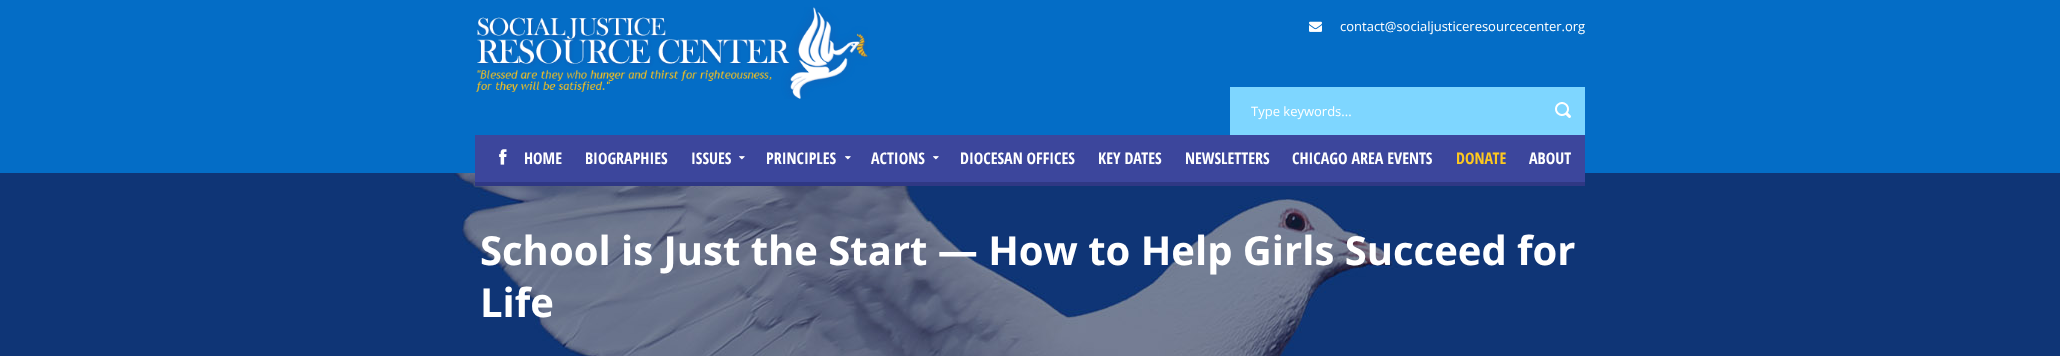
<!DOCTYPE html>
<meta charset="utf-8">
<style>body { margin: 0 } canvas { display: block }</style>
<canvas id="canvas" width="2060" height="356"></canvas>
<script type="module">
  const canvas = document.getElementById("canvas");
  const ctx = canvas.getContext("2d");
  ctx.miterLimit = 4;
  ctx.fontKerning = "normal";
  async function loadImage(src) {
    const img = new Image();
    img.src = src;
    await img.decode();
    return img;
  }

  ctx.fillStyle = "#046dc6";
  ctx.fillRect(0, 0, 2060, 356);
  ctx.drawImage(await loadImage("img1.png"), 475, 7, 393, 92);
  ctx.drawImage(await loadImage("img2.png"), 1309, 21, 13, 11);
  ctx.font = "13px Open Sans";
  ctx.fillStyle = "#ffffff";
  ctx.fillText("contact@socialjusticeresourcecenter.org", 1340, 31);
  ctx.fillStyle = "#7ed6ff";
  ctx.fillRect(1230, 87, 355, 48);
  ctx.fillStyle = "#ffffff";
  ctx.fillText("Type keywords...", 1251, 116);
  ctx.drawImage(await loadImage("img3.png"), 1555, 102, 16, 16);
  ctx.drawImage(await loadImage("img6.png"), 0, 173, 2060, 183);
  ctx.fillStyle = "#3c469c";
  ctx.fillRect(475, 135, 1110, 47);
  ctx.fillStyle = "#2f3884";
  ctx.fillRect(475, 182, 1110, 4);
  ctx.drawImage(await loadImage("img4.png"), 499, 149, 8, 16);
  ctx.font = "bold 16px Open Sans Condensed";
  ctx.fillStyle = "#ffffff";
  ctx.fillText("HOME", 524, 164);
  ctx.fillText("BIOGRAPHIES", 585, 164);
  ctx.fillText("ISSUES", 691, 164);
  ctx.drawImage(await loadImage("img5.png"), 739, 156, 6, 4);
  ctx.fillText("PRINCIPLES", 766, 164);
  ctx.drawImage(await loadImage("img5.png"), 845, 156, 6, 4);
  ctx.fillText("ACTIONS", 871, 164);
  ctx.drawImage(await loadImage("img5.png"), 933, 156, 6, 4);
  ctx.fillText("DIOCESAN OFFICES", 960, 164);
  ctx.fillText("KEY DATES", 1098, 164);
  ctx.fillText("NEWSLETTERS", 1185, 164);
  ctx.fillText("CHICAGO AREA EVENTS", 1292, 164);
  ctx.fillStyle = "#fdc820";
  ctx.fillText("DONATE", 1456, 164);
  ctx.fillStyle = "#ffffff";
  ctx.fillText("ABOUT", 1529, 164);
  ctx.font = "bold 40px Open Sans";
  ctx.fillText("School is Just the Start — How to Help Girls Succeed for", 480, 265);
  ctx.fillText("Life", 480, 317);
</script>
